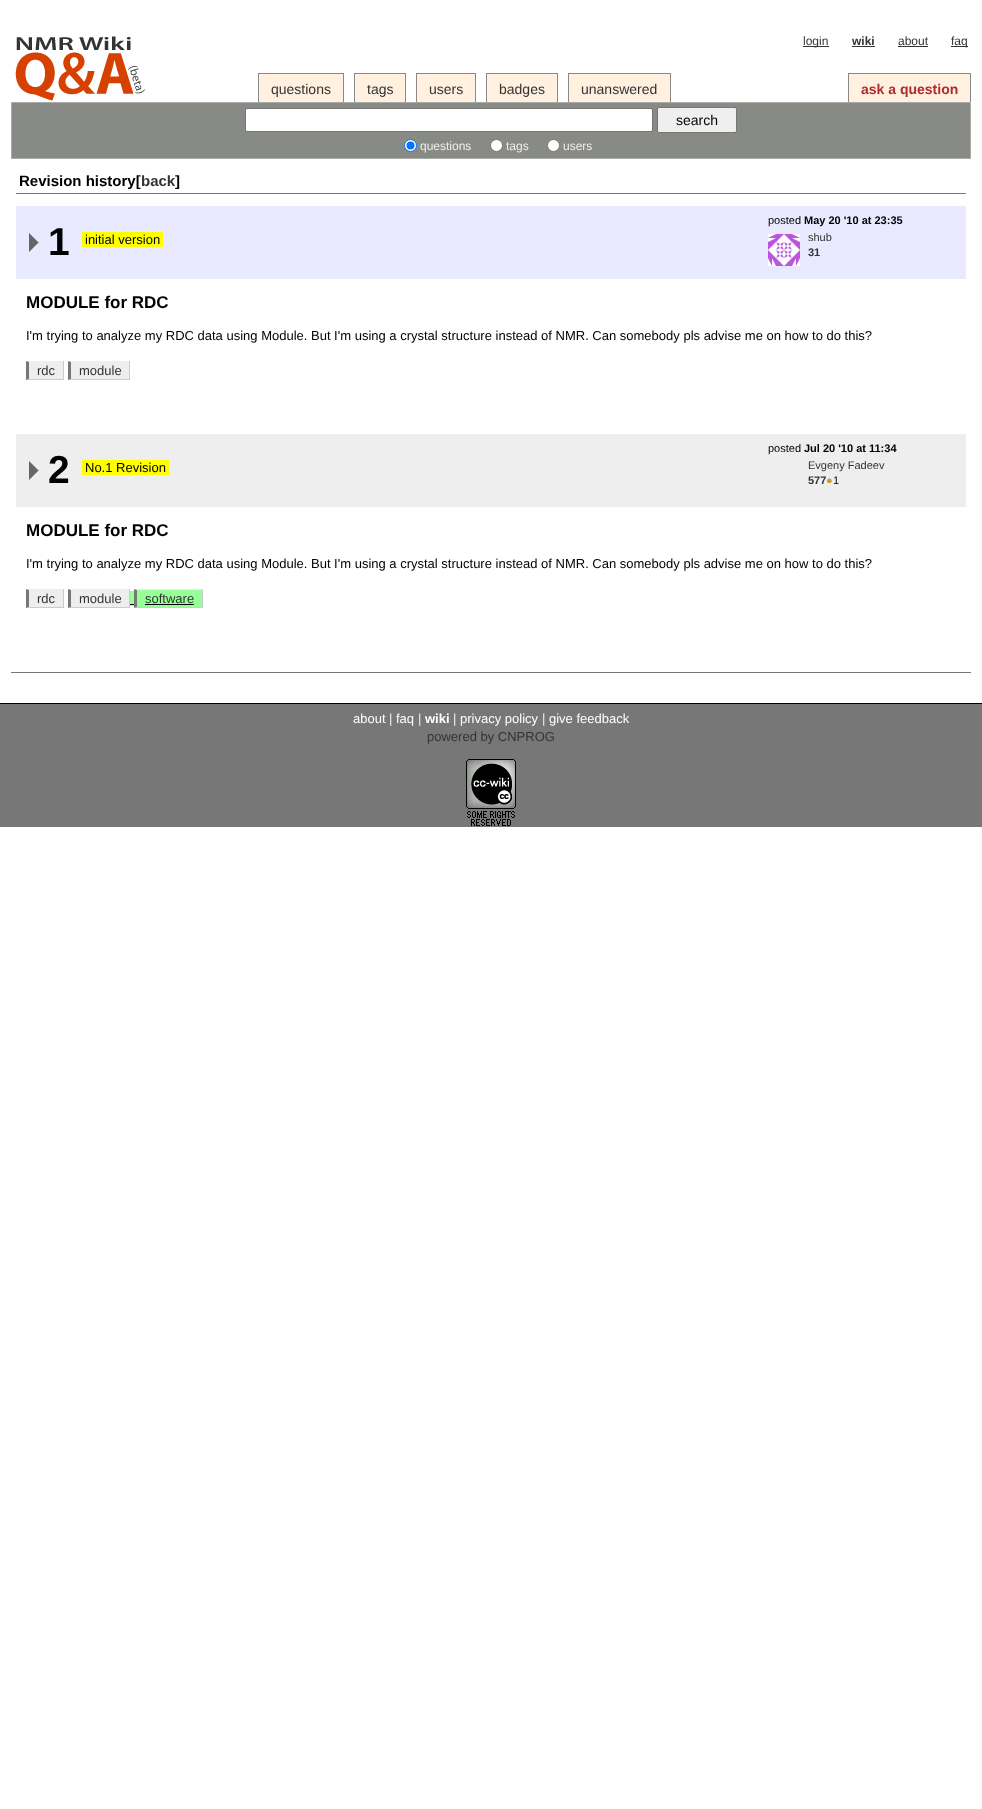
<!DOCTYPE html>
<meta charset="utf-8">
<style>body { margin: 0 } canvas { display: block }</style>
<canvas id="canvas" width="982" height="1809"></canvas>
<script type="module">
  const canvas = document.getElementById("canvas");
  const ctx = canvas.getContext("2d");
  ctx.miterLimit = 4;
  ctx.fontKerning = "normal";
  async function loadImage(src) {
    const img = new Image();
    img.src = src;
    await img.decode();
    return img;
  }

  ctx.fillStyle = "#ffffff";
  ctx.fillRect(0, 0, 982, 1809);
  ctx.fillStyle = "#333333";
  ctx.fillRect(803, 46, 26, 1);
  ctx.font = "12px Liberation Sans";
  ctx.fillText("login", 803, 45);
  ctx.font = "bold 12px Liberation Sans";
  ctx.fillText("wiki", 852, 45);
  ctx.fillRect(852, 46, 23, 1);
  ctx.font = "12px Liberation Sans";
  ctx.fillText("about", 898, 45);
  ctx.fillRect(898, 46, 30, 1);
  ctx.fillRect(951, 46, 17, 1);
  ctx.fillText("faq", 951, 45);
  ctx.drawImage(await loadImage("img1.png"), 15, 36, 130, 65);
  ctx.fillStyle = "#fff0e0";
  ctx.fillRect(259, 74, 84, 28);
  ctx.fillStyle = "#888888";
  ctx.fillRect(258, 73, 86, 1);
  ctx.fillRect(343, 73, 1, 29);
  ctx.fillRect(258, 73, 1, 29);
  ctx.font = "14px Liberation Sans";
  ctx.fillStyle = "#333333";
  ctx.fillText("questions", 271, 94);
  ctx.fillStyle = "#fff0e0";
  ctx.fillRect(355, 74, 50, 28);
  ctx.fillStyle = "#888888";
  ctx.fillRect(354, 73, 52, 1);
  ctx.fillRect(405, 73, 1, 29);
  ctx.fillRect(354, 73, 1, 29);
  ctx.fillStyle = "#333333";
  ctx.fillText("tags", 367, 94);
  ctx.fillStyle = "#fff0e0";
  ctx.fillRect(417, 74, 58, 28);
  ctx.fillStyle = "#888888";
  ctx.fillRect(416, 73, 60, 1);
  ctx.fillRect(475, 73, 1, 29);
  ctx.fillRect(416, 73, 1, 29);
  ctx.fillStyle = "#333333";
  ctx.fillText("users", 429, 94);
  ctx.fillStyle = "#fff0e0";
  ctx.fillRect(487, 74, 70, 28);
  ctx.fillStyle = "#888888";
  ctx.fillRect(486, 73, 72, 1);
  ctx.fillRect(557, 73, 1, 29);
  ctx.fillRect(486, 73, 1, 29);
  ctx.fillStyle = "#333333";
  ctx.fillText("badges", 499, 94);
  ctx.fillStyle = "#fff0e0";
  ctx.fillRect(569, 74, 101, 28);
  ctx.fillStyle = "#888888";
  ctx.fillRect(568, 73, 103, 1);
  ctx.fillRect(670, 73, 1, 29);
  ctx.fillRect(568, 73, 1, 29);
  ctx.fillStyle = "#333333";
  ctx.fillText("unanswered", 581, 94);
  ctx.fillStyle = "#fff0e0";
  ctx.fillRect(849, 74, 121, 28);
  ctx.fillStyle = "#888888";
  ctx.fillRect(848, 73, 123, 1);
  ctx.fillRect(970, 73, 1, 29);
  ctx.fillRect(848, 73, 1, 29);
  ctx.font = "bold 14px Liberation Sans";
  ctx.fillStyle = "#b02b2c";
  ctx.fillText("ask a question", 861, 94);
  ctx.fillStyle = "#888a85";
  ctx.beginPath();
  ctx.rect(11.5, 102.5, 959, 56);
  ctx.fill();
  ctx.strokeStyle = "#aaaaaa";
  ctx.stroke();
  ctx.fillStyle = "#ffffff";
  ctx.beginPath();
  ctx.roundRect(245.5, 108.5, 407, 23, 1.5);
  ctx.fill();
  ctx.strokeStyle = "#767676";
  ctx.stroke();
  ctx.fillStyle = "#efefef";
  ctx.beginPath();
  ctx.roundRect(657.5, 107.5, 79, 25, 1.5);
  ctx.fill();
  ctx.stroke();
  ctx.font = "14px Liberation Sans";
  ctx.fillStyle = "#000000";
  ctx.fillText("search", 676, 125);
  ctx.fillStyle = "#ffffff";
  ctx.beginPath();
  ctx.arc(410.5, 145.5, 6, 0, Math.PI * 2);
  ctx.fill();
  ctx.strokeStyle = "#0075ff";
  ctx.stroke();
  ctx.fillStyle = "#0075ff";
  ctx.beginPath();
  ctx.arc(410.5, 145.5, 4, 0, Math.PI * 2);
  ctx.fill();
  ctx.font = "12px Liberation Sans";
  ctx.fillStyle = "#eeeeee";
  ctx.fillText("questions", 420, 150);
  ctx.fillStyle = "#ffffff";
  ctx.beginPath();
  ctx.arc(496.5, 145.5, 6, 0, Math.PI * 2);
  ctx.fill();
  ctx.strokeStyle = "#767676";
  ctx.stroke();
  ctx.fillStyle = "#eeeeee";
  ctx.fillText("tags", 506, 150);
  ctx.fillStyle = "#ffffff";
  ctx.beginPath();
  ctx.arc(553.5, 145.5, 6, 0, Math.PI * 2);
  ctx.fill();
  ctx.stroke();
  ctx.fillStyle = "#eeeeee";
  ctx.fillText("users", 563, 150);
  ctx.fillStyle = "#777777";
  ctx.fillRect(11, 672, 960, 1);
  ctx.fillRect(16, 193, 950, 1);
  ctx.font = "bold 15px Liberation Sans";
  ctx.fillStyle = "#000000";
  ctx.fillText("Revision history[", 19, 186);
  ctx.fillStyle = "#333333";
  ctx.fillText("back", 141, 186);
  ctx.fillStyle = "#000000";
  ctx.fillText("]", 175, 186);
  ctx.fillStyle = "#e9e9ff";
  ctx.fillRect(16, 206, 950, 73);
  ctx.drawImage(await loadImage("img2.png"), 29, 233, 10, 19);
  ctx.font = "bold 39px Liberation Sans";
  ctx.fillStyle = "#000000";
  ctx.fillText("1", 48, 255);
  ctx.fillStyle = "#ffff00";
  ctx.fillRect(82, 232, 81, 15);
  ctx.font = "13px Liberation Sans";
  ctx.fillStyle = "#000000";
  ctx.fillText("initial version", 85, 244);
  ctx.font = "11px Liberation Sans";
  ctx.fillText("posted", 768, 224);
  ctx.font = "bold 11px Liberation Sans";
  ctx.fillText("May 20 '10 at 23:35", 804, 224);
  ctx.drawImage(await loadImage("img3.png"), 768, 234, 32, 32);
  ctx.font = "11px Liberation Sans";
  ctx.fillStyle = "#333333";
  ctx.fillText("shub", 808, 241);
  ctx.font = "bold 11px Liberation Sans";
  ctx.fillText("31", 808, 256);
  ctx.font = "bold 17px Liberation Sans";
  ctx.fillStyle = "#000000";
  ctx.fillText("MODULE for RDC", 26, 308);
  ctx.font = "13px Liberation Sans";
  ctx.fillText("I'm trying to analyze my RDC data using Module. But I'm using a crystal structure instead of NMR. Can somebody pls advise me on how to do this?", 26, 340);
  ctx.fillStyle = "#eeeeee";
  ctx.fillRect(29, 362, 34, 17);
  ctx.fillStyle = "#333333";
  ctx.fillText("rdc", 37, 375);
  ctx.fillStyle = "#eeeeee";
  ctx.beginPath();
  ctx.moveTo(26, 361);
  ctx.lineTo(64, 361);
  ctx.lineTo(63, 362);
  ctx.lineTo(29, 362);
  ctx.closePath();
  ctx.fill();
  ctx.fillStyle = "#cccccc";
  ctx.fillRect(63, 361, 1, 19);
  ctx.beginPath();
  ctx.moveTo(64, 380);
  ctx.lineTo(26, 380);
  ctx.lineTo(29, 379);
  ctx.lineTo(63, 379);
  ctx.closePath();
  ctx.fill();
  ctx.fillStyle = "#777777";
  ctx.beginPath();
  ctx.moveTo(26, 380);
  ctx.lineTo(26, 361);
  ctx.lineTo(29, 362);
  ctx.lineTo(29, 379);
  ctx.closePath();
  ctx.fill();
  ctx.fillStyle = "#eeeeee";
  ctx.fillRect(71, 362, 58, 17);
  ctx.fillStyle = "#333333";
  ctx.fillText("module", 79, 375);
  ctx.fillStyle = "#eeeeee";
  ctx.beginPath();
  ctx.moveTo(68, 361);
  ctx.lineTo(130, 361);
  ctx.lineTo(129, 362);
  ctx.lineTo(71, 362);
  ctx.closePath();
  ctx.fill();
  ctx.fillStyle = "#cccccc";
  ctx.fillRect(129, 361, 1, 19);
  ctx.beginPath();
  ctx.moveTo(130, 380);
  ctx.lineTo(68, 380);
  ctx.lineTo(71, 379);
  ctx.lineTo(129, 379);
  ctx.closePath();
  ctx.fill();
  ctx.fillStyle = "#777777";
  ctx.beginPath();
  ctx.moveTo(68, 380);
  ctx.lineTo(68, 361);
  ctx.lineTo(71, 362);
  ctx.lineTo(71, 379);
  ctx.closePath();
  ctx.fill();
  ctx.fillStyle = "#eeeeee";
  ctx.fillRect(16, 434, 950, 73);
  ctx.drawImage(await loadImage("img4.png"), 29, 461, 10, 19);
  ctx.font = "bold 39px Liberation Sans";
  ctx.fillStyle = "#000000";
  ctx.fillText("2", 48, 483);
  ctx.fillStyle = "#ffff00";
  ctx.fillRect(82, 460, 87, 15);
  ctx.font = "13px Liberation Sans";
  ctx.fillStyle = "#000000";
  ctx.fillText("No.1 Revision", 85, 472);
  ctx.font = "11px Liberation Sans";
  ctx.fillText("posted", 768, 452);
  ctx.font = "bold 11px Liberation Sans";
  ctx.fillText("Jul 20 '10 at 11:34", 804, 452);
  ctx.font = "11px Liberation Sans";
  ctx.fillStyle = "#333333";
  ctx.fillText("Evgeny Fadeev", 808, 469);
  ctx.font = "bold 11px Liberation Sans";
  ctx.fillText("577", 808, 484);
  ctx.font = "11px Liberation Sans";
  ctx.fillStyle = "#cc9933";
  ctx.fillText("●", 826, 484);
  ctx.fillStyle = "#000000";
  ctx.fillText("1", 833, 484);
  ctx.font = "bold 17px Liberation Sans";
  ctx.fillText("MODULE for RDC", 26, 536);
  ctx.font = "13px Liberation Sans";
  ctx.fillText("I'm trying to analyze my RDC data using Module. But I'm using a crystal structure instead of NMR. Can somebody pls advise me on how to do this?", 26, 568);
  ctx.fillStyle = "#eeeeee";
  ctx.fillRect(29, 590, 34, 17);
  ctx.fillStyle = "#333333";
  ctx.fillText("rdc", 37, 603);
  ctx.fillStyle = "#eeeeee";
  ctx.beginPath();
  ctx.moveTo(26, 589);
  ctx.lineTo(64, 589);
  ctx.lineTo(63, 590);
  ctx.lineTo(29, 590);
  ctx.closePath();
  ctx.fill();
  ctx.fillStyle = "#cccccc";
  ctx.fillRect(63, 589, 1, 19);
  ctx.beginPath();
  ctx.moveTo(64, 608);
  ctx.lineTo(26, 608);
  ctx.lineTo(29, 607);
  ctx.lineTo(63, 607);
  ctx.closePath();
  ctx.fill();
  ctx.fillStyle = "#777777";
  ctx.beginPath();
  ctx.moveTo(26, 608);
  ctx.lineTo(26, 589);
  ctx.lineTo(29, 590);
  ctx.lineTo(29, 607);
  ctx.closePath();
  ctx.fill();
  ctx.fillStyle = "#eeeeee";
  ctx.fillRect(71, 590, 58, 17);
  ctx.fillStyle = "#333333";
  ctx.fillText("module", 79, 603);
  ctx.fillStyle = "#eeeeee";
  ctx.beginPath();
  ctx.moveTo(68, 589);
  ctx.lineTo(130, 589);
  ctx.lineTo(129, 590);
  ctx.lineTo(71, 590);
  ctx.closePath();
  ctx.fill();
  ctx.fillStyle = "#cccccc";
  ctx.fillRect(129, 589, 1, 19);
  ctx.beginPath();
  ctx.moveTo(130, 608);
  ctx.lineTo(68, 608);
  ctx.lineTo(71, 607);
  ctx.lineTo(129, 607);
  ctx.closePath();
  ctx.fill();
  ctx.fillStyle = "#777777";
  ctx.beginPath();
  ctx.moveTo(68, 608);
  ctx.lineTo(68, 589);
  ctx.lineTo(71, 590);
  ctx.lineTo(71, 607);
  ctx.closePath();
  ctx.fill();
  ctx.fillStyle = "#97ff97";
  ctx.fillRect(137, 590, 65, 17);
  ctx.fillStyle = "#333333";
  ctx.fillText("software", 145, 603);
  ctx.fillStyle = "#97ff97";
  ctx.fillRect(130, 591, 4, 15);
  ctx.fillStyle = "#000000";
  ctx.fillRect(130, 604, 4, 1);
  ctx.fillStyle = "#eeeeee";
  ctx.beginPath();
  ctx.moveTo(134, 589);
  ctx.lineTo(203, 589);
  ctx.lineTo(202, 590);
  ctx.lineTo(137, 590);
  ctx.closePath();
  ctx.fill();
  ctx.fillStyle = "#cccccc";
  ctx.fillRect(202, 589, 1, 19);
  ctx.beginPath();
  ctx.moveTo(203, 608);
  ctx.lineTo(134, 608);
  ctx.lineTo(137, 607);
  ctx.lineTo(202, 607);
  ctx.closePath();
  ctx.fill();
  ctx.fillStyle = "#777777";
  ctx.beginPath();
  ctx.moveTo(134, 608);
  ctx.lineTo(134, 589);
  ctx.lineTo(137, 590);
  ctx.lineTo(137, 607);
  ctx.closePath();
  ctx.fill();
  ctx.fillStyle = "#000000";
  ctx.fillRect(145, 604, 49, 1);
  ctx.fillStyle = "#777777";
  ctx.fillRect(0, 704, 982, 123);
  ctx.fillStyle = "#000000";
  ctx.fillRect(0, 703, 982, 1);
  ctx.fillStyle = "#ffffff";
  ctx.fillText("about", 353, 723);
  ctx.fillStyle = "#eeeeee";
  ctx.fillText("|", 389, 723);
  ctx.fillStyle = "#ffffff";
  ctx.fillText("faq", 396, 723);
  ctx.fillStyle = "#eeeeee";
  ctx.fillText("|", 418, 723);
  ctx.font = "bold 13px Liberation Sans";
  ctx.fillStyle = "#ffffff";
  ctx.fillText("wiki", 425, 723);
  ctx.font = "13px Liberation Sans";
  ctx.fillStyle = "#eeeeee";
  ctx.fillText("|", 453, 723);
  ctx.fillStyle = "#ffffff";
  ctx.fillText("privacy policy", 460, 723);
  ctx.fillStyle = "#eeeeee";
  ctx.fillText("|", 542, 723);
  ctx.fillStyle = "#ffffff";
  ctx.fillText("give feedback", 549, 723);
  ctx.fillStyle = "#333333";
  ctx.fillText("powered by CNPROG", 427, 741);
  ctx.drawImage(await loadImage("img5.png"), 466, 759, 50, 67);
</script>
